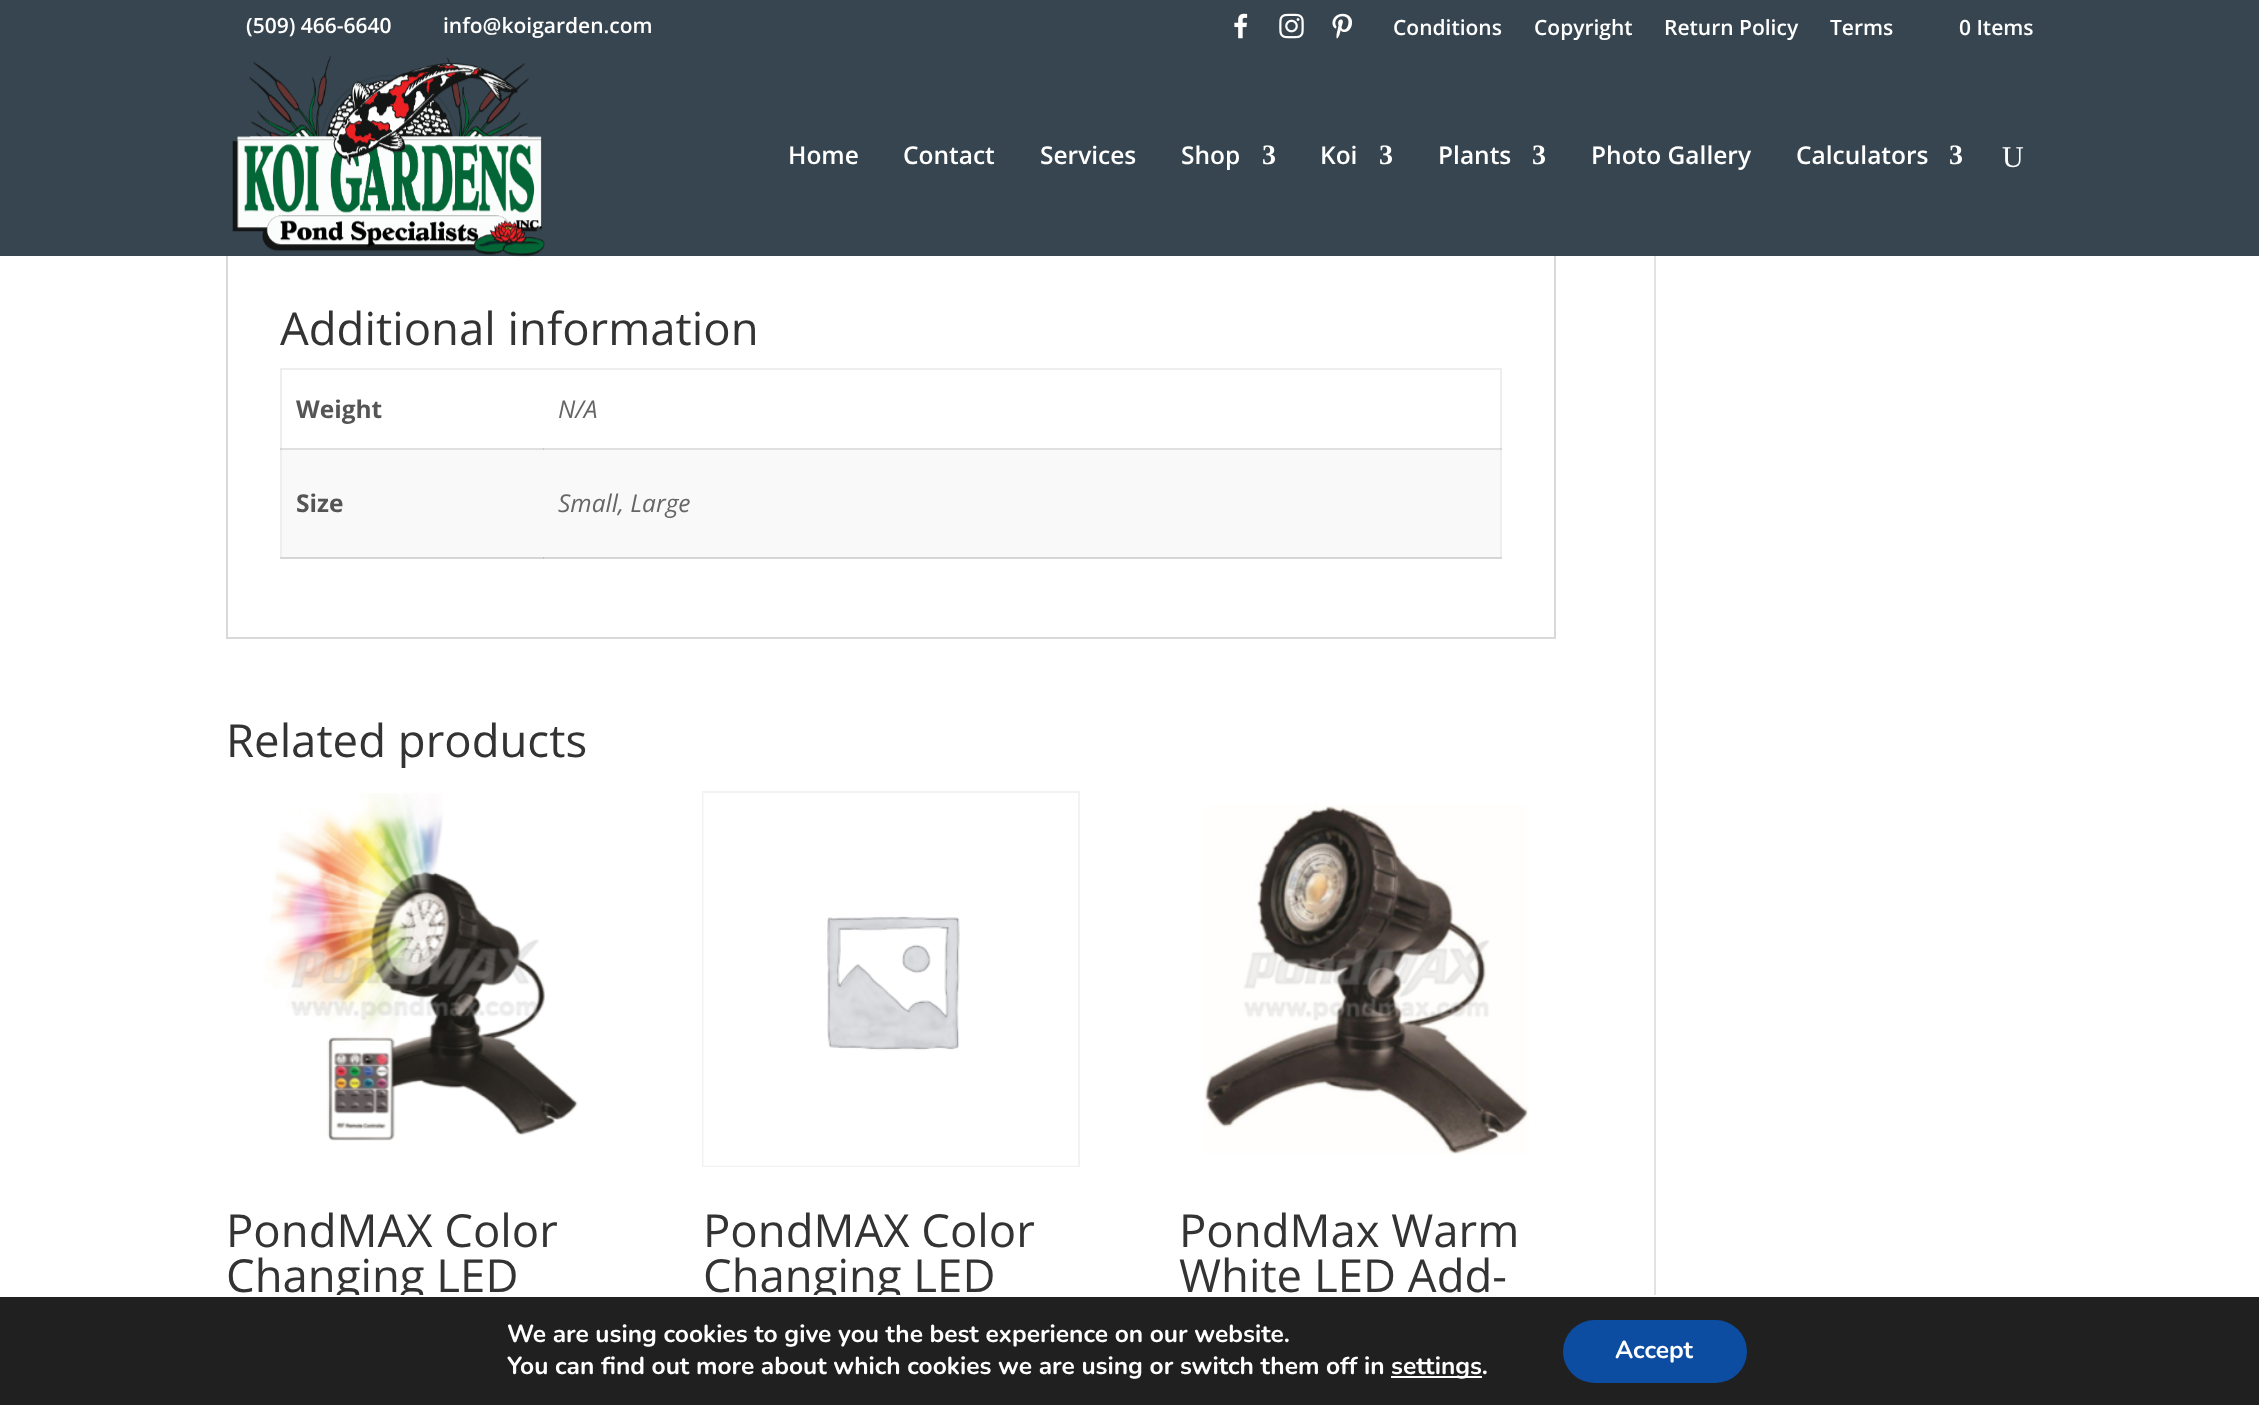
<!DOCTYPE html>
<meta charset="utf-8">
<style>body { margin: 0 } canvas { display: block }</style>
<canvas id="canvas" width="2259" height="1405"></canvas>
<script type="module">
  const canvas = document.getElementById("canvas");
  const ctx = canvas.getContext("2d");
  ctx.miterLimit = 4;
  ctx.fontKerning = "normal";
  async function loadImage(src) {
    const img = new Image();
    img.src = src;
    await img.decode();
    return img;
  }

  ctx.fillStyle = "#ffffff";
  ctx.fillRect(0, 0, 2259, 1405);
  ctx.strokeStyle = "#d9d9d9";
  ctx.lineWidth = 2;
  ctx.strokeRect(227, 192, 1328, 446);
  ctx.fillStyle = "#36454f";
  ctx.fillRect(0, 0, 2259, 256);
  ctx.font = "600 21px Open Sans";
  ctx.fillStyle = "#ffffff";
  ctx.fillText("(509) 466-6640", 246, 33);
  ctx.fillText("info@koigarden.com", 443, 33);
  ctx.drawImage(await loadImage("img1.png"), 1234, 13, 14, 26);
  ctx.drawImage(await loadImage("img2.png"), 1279, 13, 25, 26);
  ctx.drawImage(await loadImage("img3.png"), 1332, 13, 21, 26);
  ctx.fillText("Conditions", 1393, 35);
  ctx.fillText("Copyright", 1534, 35);
  ctx.fillText("Return Policy", 1664, 35);
  ctx.fillText("Terms", 1830, 35);
  ctx.fillText("0 Items", 1959, 35);
  ctx.drawImage(await loadImage("img4.png"), 232, 56, 313, 201);
  ctx.font = "600 24.5px Open Sans";
  ctx.fillText("Home", 788, 164);
  ctx.fillText("Contact", 903, 164);
  ctx.fillText("Services", 1040, 164);
  ctx.fillText("Shop", 1181, 164);
  ctx.font = "bold 28px Liberation Serif";
  ctx.fillText("3", 1262, 164);
  ctx.font = "600 24.5px Open Sans";
  ctx.fillText("Koi", 1320, 164);
  ctx.font = "bold 28px Liberation Serif";
  ctx.fillText("3", 1379, 164);
  ctx.font = "600 24.5px Open Sans";
  ctx.fillText("Plants", 1438, 164);
  ctx.font = "bold 28px Liberation Serif";
  ctx.fillText("3", 1532, 164);
  ctx.font = "600 24.5px Open Sans";
  ctx.fillText("Photo Gallery", 1591, 164);
  ctx.fillText("Calculators", 1796, 164);
  ctx.font = "bold 28px Liberation Serif";
  ctx.fillText("3", 1949, 164);
  ctx.font = "30px Liberation Serif";
  ctx.fillText("U", 2002, 167);
  ctx.font = "45.5px Open Sans";
  ctx.fillStyle = "#333333";
  ctx.fillText("Additional information", 280, 345);
  ctx.fillStyle = "#eeeeee";
  ctx.fillRect(280, 368, 1222, 2);
  ctx.fillStyle = "#e0e0e0";
  ctx.fillRect(282, 448, 1220, 2);
  ctx.fillStyle = "#eeeeee";
  ctx.fillRect(1500, 368, 2, 190);
  ctx.fillStyle = "#d6d6d6";
  ctx.fillRect(1500, 448, 2, 2);
  ctx.fillRect(280, 557, 1222, 2);
  ctx.fillStyle = "#eeeeee";
  ctx.fillRect(280, 368, 2, 190);
  ctx.fillStyle = "#d6d6d6";
  ctx.fillRect(280, 448, 2, 2);
  ctx.fillRect(280, 557, 2, 1);
  ctx.font = "bold 24.5px Open Sans";
  ctx.fillStyle = "#555555";
  ctx.fillText("Weight", 296, 418);
  ctx.font = "italic 24.5px Open Sans";
  ctx.fillStyle = "#666666";
  ctx.fillText("N/A", 558, 418);
  ctx.fillStyle = "#f9f9f9";
  ctx.fillRect(282, 450, 1218, 107);
  ctx.fillStyle = "#cacaca";
  ctx.fillRect(543, 448, 1, 2);
  ctx.font = "bold 24.5px Open Sans";
  ctx.fillStyle = "#555555";
  ctx.fillText("Size", 296, 512);
  ctx.fillStyle = "#c1c1c1";
  ctx.fillRect(543, 557, 1, 2);
  ctx.font = "italic 24.5px Open Sans";
  ctx.fillStyle = "#666666";
  ctx.fillText("Small, Large", 558, 512);
  ctx.font = "45.5px Open Sans";
  ctx.fillStyle = "#333333";
  ctx.fillText("Related products", 226, 757);
  ctx.drawImage(await loadImage("img5.png"), 264, 793, 314, 348);
  ctx.fillText("PondMAX Color", 226, 1247);
  ctx.fillText("Changing LED", 226, 1292);
  ctx.strokeStyle = "#f2f2f2";
  ctx.strokeRect(703, 792, 376, 374);
  ctx.drawImage(await loadImage("img6.png"), 703, 793, 375, 373);
  ctx.fillText("PondMAX Color", 703, 1247);
  ctx.fillText("Changing LED", 703, 1292);
  ctx.drawImage(await loadImage("img7.png"), 1204, 805, 325, 349);
  ctx.fillText("PondMax Warm", 1179, 1247);
  ctx.fillText("White LED Add-", 1179, 1292);
  ctx.fillStyle = "#e2e2e2";
  ctx.fillRect(1654, 256, 2, 1039);
  ctx.fillStyle = "#202020";
  ctx.fillRect(0, 1297, 2259, 108);
  ctx.fillStyle = "#ffffff";
  ctx.fillRect(336, 1295, 564, 2);
  ctx.font = "bold 24.5px Nunito";
  ctx.fillText("We are using cookies to give you the best experience on our website.", 507, 1342);
  ctx.fillText("You can find out more about which cookies we are using or switch them off in", 507, 1374);
  ctx.fillRect(1391, 1376, 91, 2);
  ctx.fillText("settings.", 1391, 1374);
  ctx.fillStyle = "#0c4da2";
  ctx.beginPath();
  ctx.roundRect(1563, 1320, 184, 63, 31.5);
  ctx.fill();
  ctx.fillStyle = "#ffffff";
  ctx.fillText("Accept", 1615, 1358);
</script>
